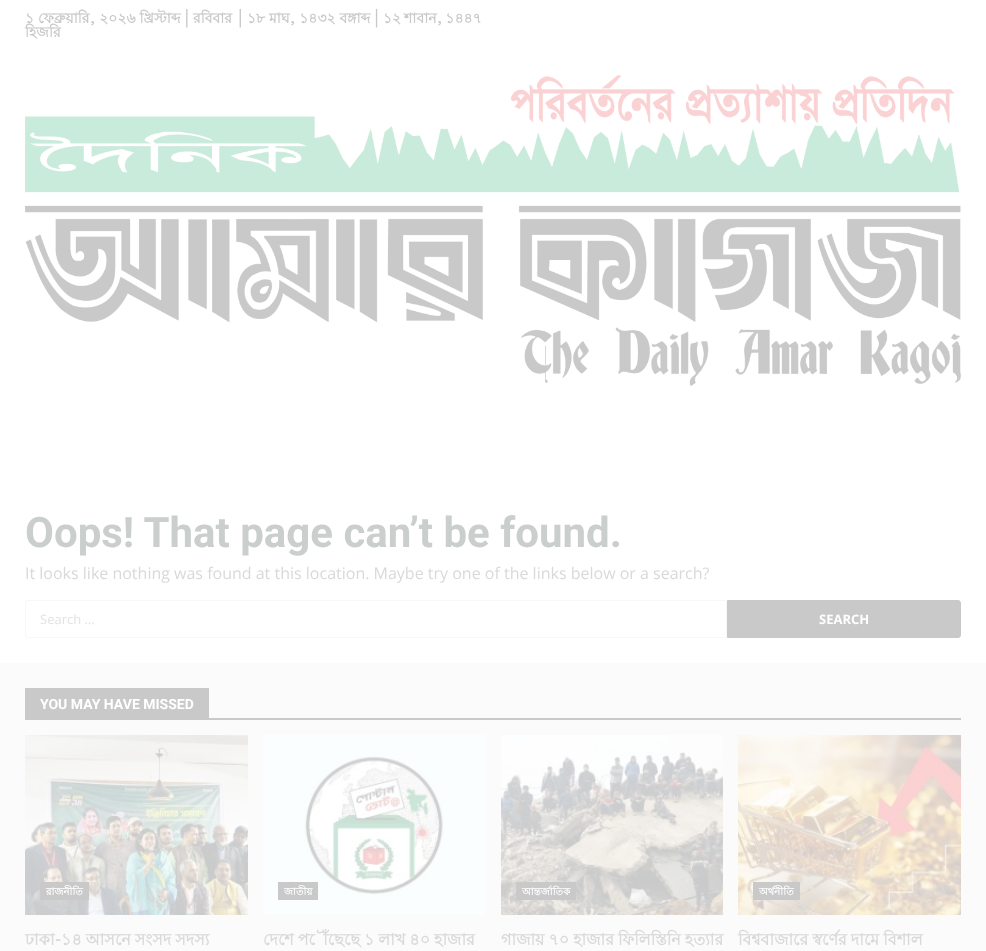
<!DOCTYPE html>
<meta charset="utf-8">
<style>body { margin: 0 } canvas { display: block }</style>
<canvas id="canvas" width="986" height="951"></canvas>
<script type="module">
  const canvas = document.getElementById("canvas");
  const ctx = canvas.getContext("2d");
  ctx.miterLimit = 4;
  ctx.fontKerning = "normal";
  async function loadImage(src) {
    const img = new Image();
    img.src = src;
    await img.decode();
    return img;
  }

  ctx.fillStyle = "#ffffff";
  ctx.fillRect(0, 0, 986, 951);
  ctx.font = "bold 14px Lohit Bengali";
  ctx.fillStyle = "#c9c9c9";
  ctx.fillText("১ ফেব্রুয়ারি, ২০২৬ খ্রিস্টাব্দ |", 25, 23);
  ctx.wordSpacing = "2px";
  ctx.fillText("রবিবার |", 193, 23);
  ctx.wordSpacing = "0px";
  ctx.fillText("১৮ মাঘ, ১৪৩২ বঙ্গাব্দ |", 247, 23);
  ctx.wordSpacing = "-1px";
  ctx.fillText("১২ শাবান, ১৪৪৭", 383, 23);
  ctx.wordSpacing = "0px";
  ctx.fillText("হিজরি", 25, 37);
  ctx.drawImage(await loadImage("img1.png"), 25, 75, 936, 311);
  ctx.font = "bold 42px Roboto";
  ctx.fillStyle = "#cacfcd";
  ctx.fillText("Oops! That page can’t be found.", 25, 547);
  ctx.font = "16px Open Sans";
  ctx.fillStyle = "#d9d9d9";
  ctx.fillText("It looks like nothing was found at this location. Maybe try one of the links below or a search?", 25, 579);
  ctx.beginPath();
  ctx.roundRect(25.5, 600.5, 701, 37, [2.5, 0, 0, 2.5]);
  ctx.strokeStyle = "#f8f8f8";
  ctx.stroke();
  ctx.font = "13px Open Sans";
  ctx.fillStyle = "#e2e2e2";
  ctx.fillText("Search …", 40, 624);
  ctx.fillStyle = "#c9c9c9";
  ctx.beginPath();
  ctx.roundRect(727.5, 600.5, 233, 37, [0, 2.5, 2.5, 0]);
  ctx.fill();
  ctx.strokeStyle = "#c9c9c9";
  ctx.stroke();
  ctx.font = "bold 13px Open Sans";
  ctx.fillStyle = "#ffffff";
  ctx.fillText("SEARCH", 819, 624);
  ctx.fillStyle = "#fbfbfb";
  ctx.fillRect(0, 663, 986, 288);
  ctx.fillStyle = "#c9c9c9";
  ctx.fillRect(25, 718, 936, 2);
  ctx.fillRect(25, 688, 184, 30);
  ctx.font = "bold 14px Roboto";
  ctx.fillStyle = "#ffffff";
  ctx.fillText("YOU MAY HAVE MISSED", 40, 709);
  ctx.drawImage(await loadImage("img2.png"), 25, 735, 223, 180);
  ctx.fillStyle = "#c9c9c9";
  ctx.fillRect(40, 882, 49, 18);
  ctx.letterSpacing = "0.1px";
  ctx.font = "bold 10px Lohit Bengali";
  ctx.fillStyle = "#ffffff";
  ctx.fillText("রাজনীতি", 46, 895);
  ctx.letterSpacing = "0px";
  ctx.font = "bold 16px Lohit Bengali";
  ctx.fillStyle = "#d9d9d9";
  ctx.fillText("ঢাকা", 25, 945);
  ctx.font = "bold 16px Roboto";
  ctx.fillText("-", 55, 945);
  ctx.wordSpacing = "-0.5px";
  ctx.font = "bold 16px Lohit Bengali";
  ctx.fillText("১৪ আসনে সংসদ সদস্য", 61, 945);
  ctx.drawImage(await loadImage("img3.png"), 263, 735, 223, 180);
  ctx.fillStyle = "#c9c9c9";
  ctx.fillRect(278, 882, 40, 18);
  ctx.letterSpacing = "0.1px";
  ctx.wordSpacing = "0px";
  ctx.font = "bold 10px Lohit Bengali";
  ctx.fillStyle = "#ffffff";
  ctx.fillText("জাতীয়", 284, 895);
  ctx.letterSpacing = "0px";
  ctx.wordSpacing = "-0.5px";
  ctx.font = "bold 16px Lohit Bengali";
  ctx.fillStyle = "#d9d9d9";
  ctx.fillText("দেশে পৌঁছেছে ১ লাখ ৪০ হাজার", 263, 945);
  ctx.drawImage(await loadImage("img4.png"), 501, 735, 222, 180);
  ctx.fillStyle = "#c9c9c9";
  ctx.fillRect(516, 882, 60, 18);
  ctx.letterSpacing = "0.1px";
  ctx.wordSpacing = "0px";
  ctx.font = "bold 10px Lohit Bengali";
  ctx.fillStyle = "#ffffff";
  ctx.fillText("আন্তর্জাতিক", 522, 895);
  ctx.letterSpacing = "0px";
  ctx.wordSpacing = "-0.5px";
  ctx.font = "bold 16px Lohit Bengali";
  ctx.fillStyle = "#d9d9d9";
  ctx.fillText("গাজায় ৭০ হাজার ফিলিস্তিনি হত্যার", 501, 945);
  ctx.drawImage(await loadImage("img5.png"), 738, 735, 223, 180);
  ctx.fillStyle = "#c9c9c9";
  ctx.fillRect(753, 882, 47, 18);
  ctx.letterSpacing = "0.1px";
  ctx.wordSpacing = "0px";
  ctx.font = "bold 10px Lohit Bengali";
  ctx.fillStyle = "#ffffff";
  ctx.fillText("অর্থনীতি", 759, 895);
  ctx.letterSpacing = "0px";
  ctx.wordSpacing = "-0.5px";
  ctx.font = "bold 16px Lohit Bengali";
  ctx.fillStyle = "#d9d9d9";
  ctx.fillText("বিশ্ববাজারে স্বর্ণের দামে বিশাল", 738, 945);
</script>
